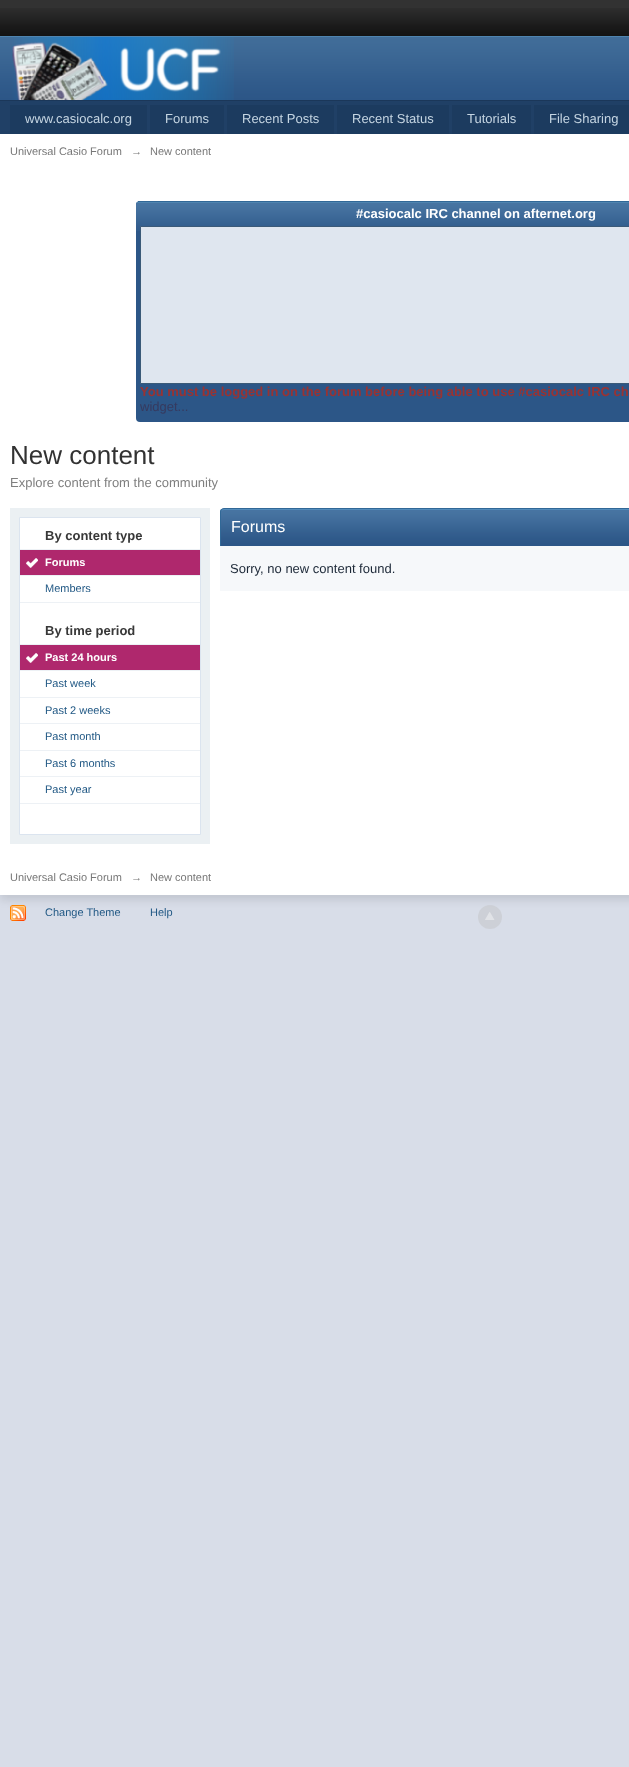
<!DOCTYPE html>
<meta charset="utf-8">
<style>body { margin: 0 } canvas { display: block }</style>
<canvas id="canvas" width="629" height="1767"></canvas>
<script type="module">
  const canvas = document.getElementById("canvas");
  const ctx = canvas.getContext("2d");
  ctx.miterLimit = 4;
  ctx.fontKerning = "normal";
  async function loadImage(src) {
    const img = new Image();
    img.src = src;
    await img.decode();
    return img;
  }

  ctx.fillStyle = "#d8dde8";
  ctx.fillRect(0, 0, 629, 1767);
  ctx.fillStyle = "#323232";
  ctx.fillRect(0, 0, 629, 8);
  ctx.drawImage(await loadImage("img1.png"), 0, 8, 629, 28);
  ctx.drawImage(await loadImage("img2.png"), 0, 36, 629, 64);
  ctx.fillStyle = "#1b3759";
  ctx.fillRect(0, 100, 629, 1);
  ctx.drawImage(await loadImage("img3.png"), 12, 37, 222, 63);
  ctx.fillStyle = "#204066";
  ctx.fillRect(0, 101, 629, 33);
  ctx.fillStyle = "rgba(0, 0, 0, 0.1)";
  ctx.filter = "blur(4.5px)";
  ctx.beginPath();
  ctx.rect(0, 139, 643, 761);
  ctx.fill();
  ctx.filter = "none";
  ctx.fillStyle = "#1c3b5f";
  ctx.fillRect(10, 105, 137, 29);
  ctx.font = "13px Liberation Sans";
  ctx.fillStyle = "#c5d5e2";
  ctx.fillText("www.casiocalc.org", 25, 123);
  ctx.fillStyle = "#1c3b5f";
  ctx.fillRect(150, 105, 74, 29);
  ctx.fillStyle = "#c5d5e2";
  ctx.fillText("Forums", 165, 123);
  ctx.fillStyle = "#1c3b5f";
  ctx.fillRect(227, 105, 107, 29);
  ctx.fillStyle = "#c5d5e2";
  ctx.fillText("Recent Posts", 242, 123);
  ctx.fillStyle = "#1c3b5f";
  ctx.fillRect(337, 105, 112, 29);
  ctx.fillStyle = "#c5d5e2";
  ctx.fillText("Recent Status", 352, 123);
  ctx.fillStyle = "#1c3b5f";
  ctx.fillRect(452, 105, 79, 29);
  ctx.fillStyle = "#c5d5e2";
  ctx.fillText("Tutorials", 467, 123);
  ctx.fillStyle = "#1c3b5f";
  ctx.fillRect(534, 105, 95, 29);
  ctx.fillStyle = "#c5d5e2";
  ctx.fillText("File Sharing", 549, 123);
  ctx.fillStyle = "#ffffff";
  ctx.fillRect(0, 134, 629, 761);
  ctx.font = "11px Liberation Sans";
  ctx.fillStyle = "#777777";
  ctx.fillText("Universal Casio Forum", 10, 155);
  ctx.fillText("→", 131, 155);
  ctx.fillText("New content", 150, 155);
  ctx.fillStyle = "#2c5687";
  ctx.beginPath();
  ctx.roundRect(136, 201, 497, 221, 4);
  ctx.fill();
  ctx.drawImage(await loadImage("img4.png"), 136, 202, 493, 29);
  ctx.fillStyle = "#316897";
  ctx.fillRect(138, 201, 491, 1);
  ctx.font = "bold 13px Liberation Sans";
  ctx.fillStyle = "#ffffff";
  ctx.fillText("#casiocalc IRC channel on afternet.org", 356, 218);
  ctx.fillStyle = "#dfe6ef";
  ctx.beginPath();
  ctx.rect(140.5, 226.5, 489, 157);
  ctx.fill();
  ctx.strokeStyle = "#3b5a78";
  ctx.stroke();
  ctx.fillStyle = "#993333";
  ctx.fillText("You must be logged in on the forum before being able to use #casiocalc IRC ch", 140, 396);
  ctx.font = "13px Liberation Sans";
  ctx.fillStyle = "#363a5f";
  ctx.fillText("widget...", 140, 411);
  ctx.font = "26px Liberation Sans";
  ctx.fillStyle = "#323232";
  ctx.fillText("New content", 10, 464);
  ctx.font = "13px Liberation Sans";
  ctx.fillStyle = "#7f7f7f";
  ctx.fillText("Explore content from the community", 10, 487);
  ctx.fillStyle = "#ebf0f3";
  ctx.fillRect(10, 508, 200, 336);
  ctx.fillStyle = "#ffffff";
  ctx.beginPath();
  ctx.rect(19.5, 517.5, 181, 317);
  ctx.fill();
  ctx.strokeStyle = "#dbe4ef";
  ctx.stroke();
  ctx.font = "bold 13px Liberation Sans";
  ctx.fillStyle = "#383838";
  ctx.fillText("By content type", 45, 540);
  ctx.fillStyle = "#edf1f5";
  ctx.fillRect(20, 549, 180, 1);
  ctx.fillRect(20, 575, 180, 1);
  ctx.fillStyle = "#af286d";
  ctx.fillRect(20, 550, 180, 25);
  ctx.drawImage(await loadImage("img5.png"), 26, 558, 12, 10);
  ctx.font = "bold 11px Liberation Sans";
  ctx.fillStyle = "#ffffff";
  ctx.fillText("Forums", 45, 566);
  ctx.fillStyle = "#edf1f5";
  ctx.fillRect(20, 602, 180, 1);
  ctx.font = "11px Liberation Sans";
  ctx.fillStyle = "#225985";
  ctx.fillText("Members", 45, 592);
  ctx.font = "bold 13px Liberation Sans";
  ctx.fillStyle = "#383838";
  ctx.fillText("By time period", 45, 635);
  ctx.fillStyle = "#edf1f5";
  ctx.fillRect(20, 644, 180, 1);
  ctx.fillRect(20, 670, 180, 1);
  ctx.fillStyle = "#af286d";
  ctx.fillRect(20, 645, 180, 25);
  ctx.drawImage(await loadImage("img5.png"), 26, 653, 12, 10);
  ctx.font = "bold 11px Liberation Sans";
  ctx.fillStyle = "#ffffff";
  ctx.fillText("Past 24 hours", 45, 661);
  ctx.fillStyle = "#edf1f5";
  ctx.fillRect(20, 697, 180, 1);
  ctx.font = "11px Liberation Sans";
  ctx.fillStyle = "#225985";
  ctx.fillText("Past week", 45, 687);
  ctx.fillStyle = "#edf1f5";
  ctx.fillRect(20, 723, 180, 1);
  ctx.fillStyle = "#225985";
  ctx.fillText("Past 2 weeks", 45, 714);
  ctx.fillStyle = "#edf1f5";
  ctx.fillRect(20, 750, 180, 1);
  ctx.fillStyle = "#225985";
  ctx.fillText("Past month", 45, 740);
  ctx.fillStyle = "#edf1f5";
  ctx.fillRect(20, 776, 180, 1);
  ctx.fillStyle = "#225985";
  ctx.fillText("Past 6 months", 45, 767);
  ctx.fillStyle = "#edf1f5";
  ctx.fillRect(20, 803, 180, 1);
  ctx.fillStyle = "#225985";
  ctx.fillText("Past year", 45, 793);
  ctx.fillStyle = "#2c5687";
  ctx.fillRect(221, 544, 408, 2);
  ctx.drawImage(await loadImage("img6.png"), 220, 509, 409, 35);
  ctx.fillStyle = "#528cbc";
  ctx.beginPath();
  ctx.moveTo(224, 510);
  ctx.lineTo(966, 510);
  ctx.bezierCurveTo(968, 510, 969, 511, 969, 513);
  ctx.bezierCurveTo(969, 511, 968, 509, 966, 509);
  ctx.lineTo(224, 509);
  ctx.bezierCurveTo(222, 509, 221, 511, 221, 513);
  ctx.bezierCurveTo(221, 511, 222, 510, 224, 510);
  ctx.closePath();
  ctx.fill();
  ctx.fillStyle = "#316897";
  ctx.beginPath();
  ctx.moveTo(224, 508);
  ctx.lineTo(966, 508);
  ctx.bezierCurveTo(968, 508, 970, 510, 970, 512);
  ctx.lineTo(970, 546);
  ctx.lineTo(220, 546);
  ctx.lineTo(220, 512);
  ctx.bezierCurveTo(220, 510, 222, 508, 224, 508);
  ctx.closePath();
  ctx.moveTo(224, 509);
  ctx.lineTo(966, 509);
  ctx.bezierCurveTo(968, 509, 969, 510, 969, 512);
  ctx.lineTo(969, 546);
  ctx.lineTo(221, 546);
  ctx.lineTo(221, 512);
  ctx.bezierCurveTo(221, 510, 222, 509, 224, 509);
  ctx.closePath();
  ctx.fill("evenodd");
  ctx.font = "16px Liberation Sans";
  ctx.fillStyle = "#ffffff";
  ctx.fillText("Forums", 231, 532);
  ctx.fillStyle = "#f6f8fa";
  ctx.fillRect(220, 546, 409, 45);
  ctx.font = "13px Liberation Sans";
  ctx.fillStyle = "#1c2837";
  ctx.fillText("Sorry, no new content found.", 230, 573);
  ctx.font = "11px Liberation Sans";
  ctx.fillStyle = "#777777";
  ctx.fillText("Universal Casio Forum", 10, 881);
  ctx.fillText("→", 131, 881);
  ctx.fillText("New content", 150, 881);
  ctx.drawImage(await loadImage("img7.png"), 10, 905, 16, 16);
  ctx.fillStyle = "#225985";
  ctx.fillText("Change Theme", 45, 916);
  ctx.fillText("Help", 150, 916);
  ctx.fillStyle = "rgba(189, 189, 189, 0.4)";
  ctx.beginPath();
  ctx.arc(490, 917, 12, 0, Math.PI * 2);
  ctx.fill();
  ctx.drawImage(await loadImage("img8.png"), 485, 912, 10, 8);
</script>
